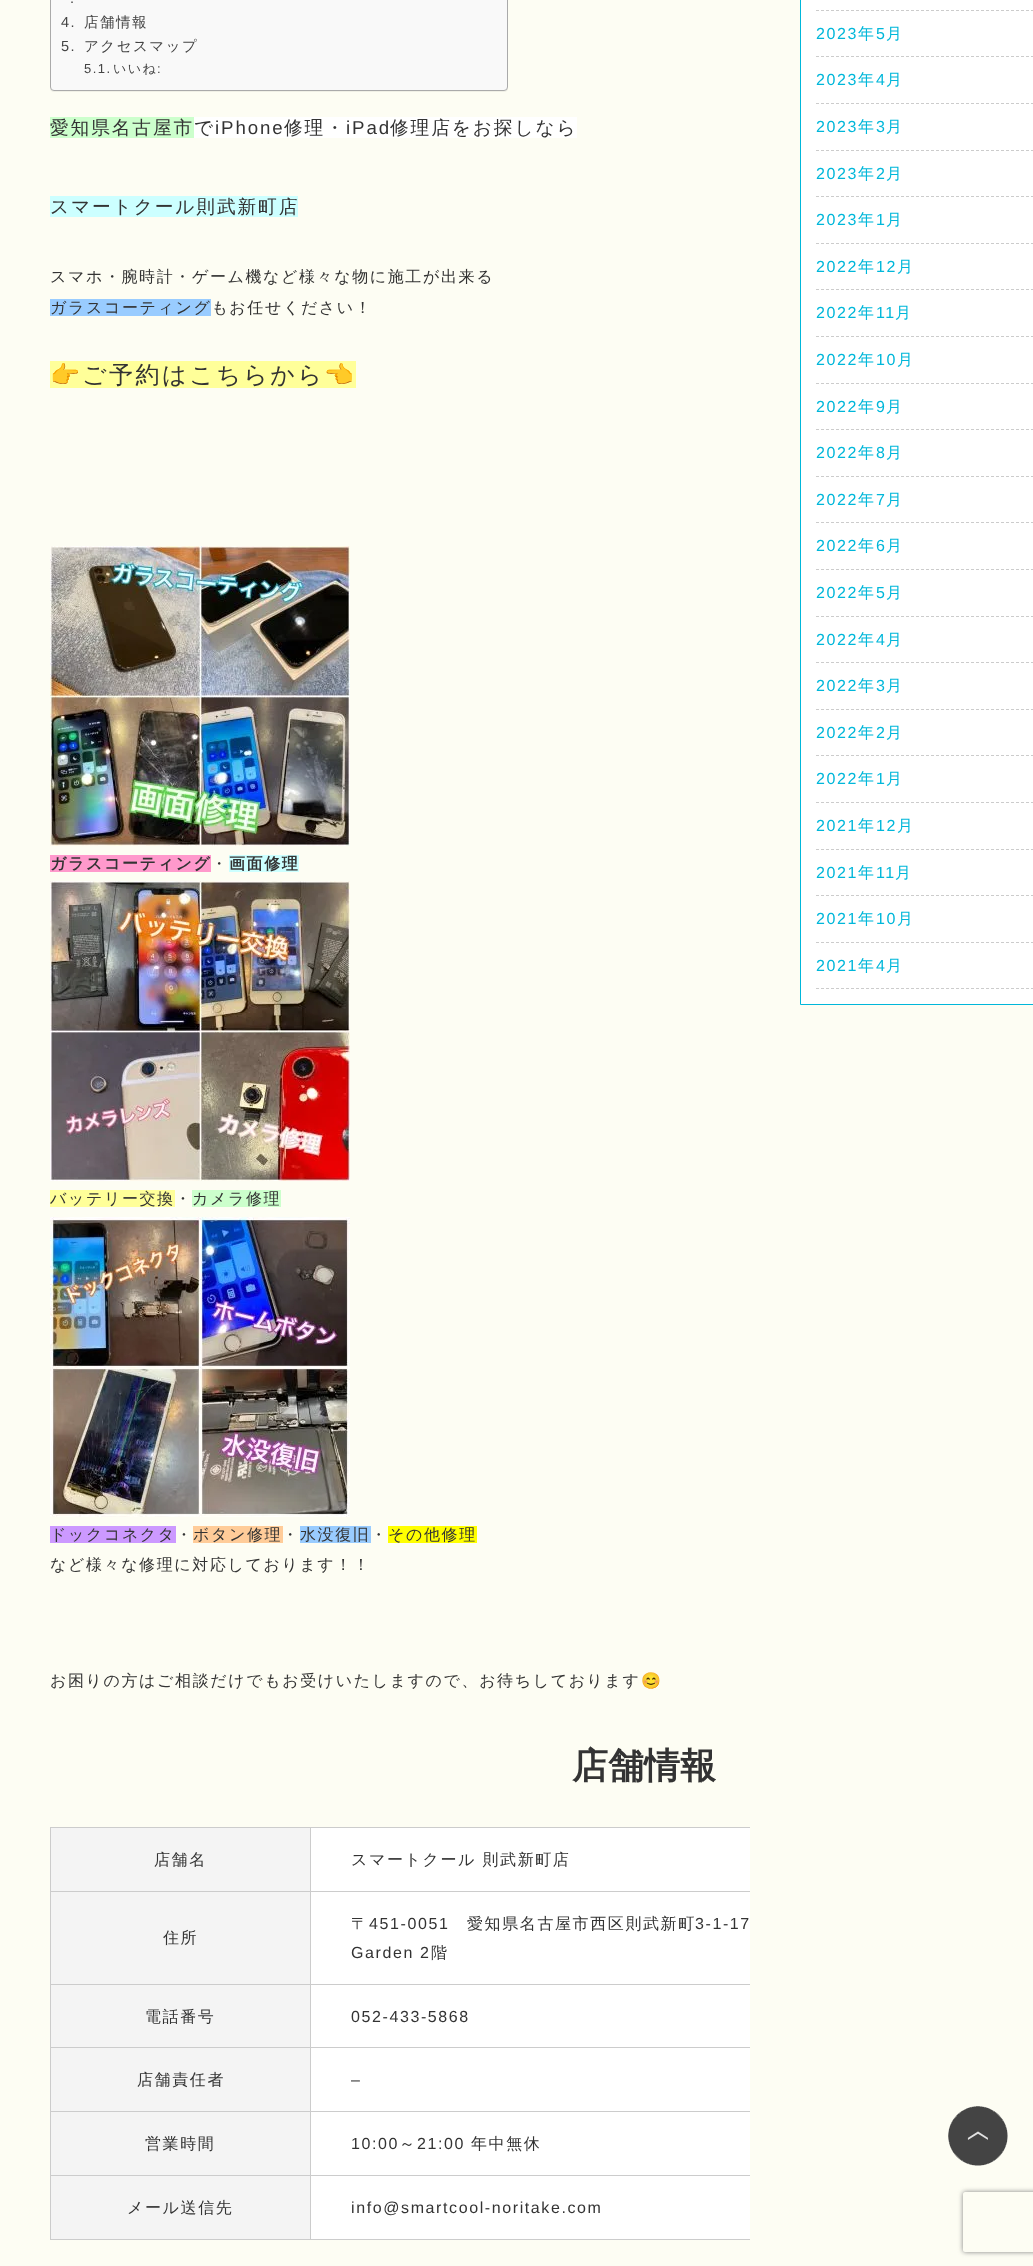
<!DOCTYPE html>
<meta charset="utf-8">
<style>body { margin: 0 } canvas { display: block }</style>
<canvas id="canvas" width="1033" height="2266"></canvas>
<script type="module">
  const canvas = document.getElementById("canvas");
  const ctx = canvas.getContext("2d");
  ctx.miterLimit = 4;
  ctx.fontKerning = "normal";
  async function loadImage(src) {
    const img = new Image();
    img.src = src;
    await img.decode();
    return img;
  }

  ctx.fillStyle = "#fdfdf3";
  ctx.fillRect(0, 0, 1033, 2266);
  ctx.fillStyle = "rgba(0, 0, 0, 0.05)";
  ctx.filter = "blur(0.5px)";
  ctx.beginPath();
  ctx.roundRect(50, -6, 458, 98, 4);
  ctx.fill();
  ctx.filter = "none";
  ctx.fillStyle = "#f9f9f9";
  ctx.beginPath();
  ctx.roundRect(50.5, -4.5, 457, 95, 3.5);
  ctx.fill();
  ctx.strokeStyle = "#aaaaaa";
  ctx.stroke();
  ctx.letterSpacing = "1.5px";
  ctx.font = "14.5px Liberation Sans";
  ctx.fillStyle = "#444444";
  ctx.fillText(".", 70, 3);
  ctx.fillText("4.", 61, 27);
  ctx.font = "500 14.5px WenQuanYi Zen Hei";
  ctx.fillText("店舗情報", 84, 27);
  ctx.font = "14.5px Liberation Sans";
  ctx.fillText("5.", 61, 51);
  ctx.font = "500 14.5px WenQuanYi Zen Hei";
  ctx.fillText("アクセスマップ", 84, 51);
  ctx.font = "13px Liberation Sans";
  ctx.fillText("5.1.", 84, 73);
  ctx.font = "500 13px WenQuanYi Zen Hei";
  ctx.fillText("いいね", 113, 73);
  ctx.font = "13px Liberation Sans";
  ctx.fillText(":", 157, 73);
  ctx.fillStyle = "#ffffff";
  ctx.fillRect(194, 117, 383, 21);
  ctx.fillStyle = "#ccffcc";
  ctx.fillRect(50, 117, 144, 21);
  ctx.letterSpacing = "1.9px";
  ctx.font = "500 18.7px WenQuanYi Zen Hei";
  ctx.fillStyle = "#333333";
  ctx.fillText("愛知県名古屋市で", 50, 134);
  ctx.font = "18.7px Liberation Sans";
  ctx.fillText("iPhone", 215, 134);
  ctx.font = "500 18.7px WenQuanYi Zen Hei";
  ctx.fillText("修理・", 284, 134);
  ctx.font = "18.7px Liberation Sans";
  ctx.fillText("iPad", 346, 134);
  ctx.font = "500 18.7px WenQuanYi Zen Hei";
  ctx.fillText("修理店をお探しなら", 390, 134);
  ctx.fillStyle = "#ccffff";
  ctx.fillRect(50, 196, 248, 21);
  ctx.fillStyle = "#333333";
  ctx.fillText("スマートクール則武新町店", 50, 213);
  ctx.letterSpacing = "1.6px";
  ctx.font = "500 16px WenQuanYi Zen Hei";
  ctx.fillText("スマホ・腕時計・ゲーム機など様々な物に施工が出来る", 50, 282);
  ctx.fillStyle = "#99ccff";
  ctx.fillRect(50, 299, 161, 17);
  ctx.fillStyle = "#333333";
  ctx.fillText("ガラスコーティングもお任せください！", 50, 313);
  ctx.fillStyle = "#ffff99";
  ctx.fillRect(50, 361, 306, 27);
  ctx.letterSpacing = "2.5px";
  ctx.font = "24px Noto Color Emoji";
  ctx.fillStyle = "#333333";
  ctx.fillText("👉", 50, 383);
  ctx.font = "500 24px WenQuanYi Zen Hei";
  ctx.fillText("ご予約はこちらから", 82, 383);
  ctx.font = "24px Noto Color Emoji";
  ctx.fillText("👈", 324, 383);
  ctx.drawImage(await loadImage("img1.png"), 50, 546, 300, 300);
  ctx.fillStyle = "#ff99cc";
  ctx.fillRect(50, 855, 161, 17);
  ctx.letterSpacing = "1.6px";
  ctx.font = "bold 16px WenQuanYi Zen Hei";
  ctx.fillStyle = "#333333";
  ctx.fillText("ガラスコーティング", 50, 869);
  ctx.font = "500 16px WenQuanYi Zen Hei";
  ctx.fillText("・", 211, 869);
  ctx.fillStyle = "#ccffff";
  ctx.fillRect(229, 855, 70, 17);
  ctx.font = "bold 16px WenQuanYi Zen Hei";
  ctx.fillStyle = "#333333";
  ctx.fillText("画面修理", 229, 869);
  ctx.drawImage(await loadImage("img2.png"), 50, 881, 300, 300);
  ctx.fillStyle = "#ffff99";
  ctx.fillRect(50, 1190, 125, 17);
  ctx.font = "500 16px WenQuanYi Zen Hei";
  ctx.fillStyle = "#333333";
  ctx.fillText("バッテリー交換・", 50, 1204);
  ctx.fillStyle = "#ccffcc";
  ctx.fillRect(192, 1190, 89, 17);
  ctx.fillStyle = "#333333";
  ctx.fillText("カメラ修理", 192, 1204);
  ctx.drawImage(await loadImage("img3.png"), 50, 1217, 300, 300);
  ctx.fillStyle = "#cc99ff";
  ctx.fillRect(50, 1526, 126, 17);
  ctx.fillStyle = "#333333";
  ctx.fillText("ドックコネクタ・", 50, 1540);
  ctx.fillStyle = "#ffcc99";
  ctx.fillRect(193, 1526, 90, 17);
  ctx.fillStyle = "#333333";
  ctx.fillText("ボタン修理・", 193, 1540);
  ctx.fillStyle = "#99ccff";
  ctx.fillRect(300, 1526, 71, 17);
  ctx.fillStyle = "#333333";
  ctx.fillText("水没復旧・", 300, 1540);
  ctx.fillStyle = "#ffff00";
  ctx.fillRect(388, 1526, 89, 17);
  ctx.fillStyle = "#333333";
  ctx.fillText("その他修理", 388, 1540);
  ctx.fillText("など様々な修理に対応しております！！", 50, 1570);
  ctx.fillText("お困りの方はご相談だけでもお受けいたしますので、お待ちしております", 50, 1686);
  ctx.font = "16px Noto Color Emoji";
  ctx.fillText("😊", 641, 1686);
  ctx.letterSpacing = "0px";
  ctx.font = "bold 36px WenQuanYi Zen Hei";
  ctx.fillText("店舗情報", 572, 1778);
  ctx.fillStyle = "#ffffff";
  ctx.fillRect(311, 1828, 439, 411);
  ctx.fillStyle = "#cccccc";
  ctx.fillRect(50, 1827, 700, 1);
  ctx.fillRect(50, 2239, 700, 1);
  ctx.fillRect(50, 1827, 1, 413);
  ctx.fillStyle = "#f4f4f4";
  ctx.fillRect(51, 1828, 259, 63);
  ctx.letterSpacing = "1.6px";
  ctx.font = "500 16px WenQuanYi Zen Hei";
  ctx.fillStyle = "#333333";
  ctx.fillText("店舗名", 154, 1865);
  ctx.fillStyle = "#cccccc";
  ctx.fillRect(310, 1891, 440, 1);
  ctx.fillRect(310, 1984, 440, 1);
  ctx.fillRect(310, 2047, 440, 1);
  ctx.fillRect(310, 2111, 440, 1);
  ctx.fillRect(310, 2175, 440, 1);
  ctx.fillRect(310, 2175, 1, 65);
  ctx.fillRect(50, 2175, 261, 1);
  ctx.fillRect(310, 2111, 1, 65);
  ctx.fillRect(50, 2111, 261, 1);
  ctx.fillRect(310, 2047, 1, 65);
  ctx.fillRect(50, 2047, 261, 1);
  ctx.fillRect(310, 1984, 1, 64);
  ctx.fillRect(50, 1984, 261, 1);
  ctx.fillRect(310, 1891, 1, 94);
  ctx.fillRect(50, 1891, 261, 1);
  ctx.fillRect(310, 1827, 1, 65);
  ctx.fillStyle = "#333333";
  ctx.fillText("スマートクール 則武新町店", 351, 1865);
  ctx.fillStyle = "#f4f4f4";
  ctx.fillRect(51, 1892, 259, 92);
  ctx.fillStyle = "#333333";
  ctx.fillText("住所", 163, 1943);
  ctx.fillText("〒", 351, 1929);
  ctx.font = "16px Liberation Sans";
  ctx.fillText("451-0051", 369, 1929);
  ctx.font = "500 16px WenQuanYi Zen Hei";
  ctx.fillText("愛知県名古屋市西区則武新町", 467, 1929);
  ctx.font = "16px Liberation Sans";
  ctx.fillText("3-1-17", 695, 1929);
  ctx.fillText("Garden 2", 351, 1958);
  ctx.font = "500 16px WenQuanYi Zen Hei";
  ctx.fillText("階", 431, 1958);
  ctx.fillStyle = "#f4f4f4";
  ctx.fillRect(51, 1985, 259, 62);
  ctx.fillStyle = "#333333";
  ctx.fillText("電話番号", 145, 2022);
  ctx.font = "16px Liberation Sans";
  ctx.fillText("052-433-5868", 351, 2022);
  ctx.fillStyle = "#f4f4f4";
  ctx.fillRect(51, 2048, 259, 63);
  ctx.font = "500 16px WenQuanYi Zen Hei";
  ctx.fillStyle = "#333333";
  ctx.fillText("店舗責任者", 137, 2085);
  ctx.font = "16px Liberation Sans";
  ctx.fillText("–", 351, 2085);
  ctx.fillStyle = "#f4f4f4";
  ctx.fillRect(51, 2112, 259, 63);
  ctx.font = "500 16px WenQuanYi Zen Hei";
  ctx.fillStyle = "#333333";
  ctx.fillText("営業時間", 145, 2149);
  ctx.font = "16px Liberation Sans";
  ctx.fillText("10:00", 351, 2149);
  ctx.font = "500 16px WenQuanYi Zen Hei";
  ctx.fillText("～", 399, 2149);
  ctx.font = "16px Liberation Sans";
  ctx.fillText("21:00", 417, 2149);
  ctx.font = "500 16px WenQuanYi Zen Hei";
  ctx.fillText("年中無休", 471, 2149);
  ctx.fillStyle = "#f4f4f4";
  ctx.fillRect(51, 2176, 259, 63);
  ctx.fillStyle = "#333333";
  ctx.fillText("メール送信先", 127, 2213);
  ctx.font = "16px Liberation Sans";
  ctx.fillText("info@smartcool-noritake.com", 351, 2213);
  ctx.fillStyle = "#ffffff";
  ctx.beginPath();
  ctx.rect(800.5, -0.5, 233, 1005);
  ctx.fill();
  ctx.strokeStyle = "#00b7da";
  ctx.stroke();
  ctx.beginPath();
  ctx.moveTo(816, 10.5);
  ctx.lineTo(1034, 10.5);
  ctx.strokeStyle = "#cccccc";
  ctx.setLineDash([3, 2]);
  ctx.stroke();
  ctx.beginPath();
  ctx.moveTo(816, 56.5);
  ctx.lineTo(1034, 56.5);
  ctx.stroke();
  ctx.fillStyle = "#00b7da";
  ctx.fillText("2023", 816, 39);
  ctx.font = "500 16px WenQuanYi Zen Hei";
  ctx.fillText("年", 858, 39);
  ctx.font = "16px Liberation Sans";
  ctx.fillText("5", 876, 39);
  ctx.font = "500 16px WenQuanYi Zen Hei";
  ctx.fillText("月", 886, 39);
  ctx.beginPath();
  ctx.moveTo(816, 103.5);
  ctx.lineTo(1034, 103.5);
  ctx.stroke();
  ctx.font = "16px Liberation Sans";
  ctx.fillText("2023", 816, 85);
  ctx.font = "500 16px WenQuanYi Zen Hei";
  ctx.fillText("年", 858, 85);
  ctx.font = "16px Liberation Sans";
  ctx.fillText("4", 876, 85);
  ctx.font = "500 16px WenQuanYi Zen Hei";
  ctx.fillText("月", 886, 85);
  ctx.beginPath();
  ctx.moveTo(816, 150.5);
  ctx.lineTo(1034, 150.5);
  ctx.stroke();
  ctx.font = "16px Liberation Sans";
  ctx.fillText("2023", 816, 132);
  ctx.font = "500 16px WenQuanYi Zen Hei";
  ctx.fillText("年", 858, 132);
  ctx.font = "16px Liberation Sans";
  ctx.fillText("3", 876, 132);
  ctx.font = "500 16px WenQuanYi Zen Hei";
  ctx.fillText("月", 886, 132);
  ctx.beginPath();
  ctx.moveTo(816, 196.5);
  ctx.lineTo(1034, 196.5);
  ctx.stroke();
  ctx.font = "16px Liberation Sans";
  ctx.fillText("2023", 816, 179);
  ctx.font = "500 16px WenQuanYi Zen Hei";
  ctx.fillText("年", 858, 179);
  ctx.font = "16px Liberation Sans";
  ctx.fillText("2", 876, 179);
  ctx.font = "500 16px WenQuanYi Zen Hei";
  ctx.fillText("月", 886, 179);
  ctx.beginPath();
  ctx.moveTo(816, 243.5);
  ctx.lineTo(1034, 243.5);
  ctx.stroke();
  ctx.font = "16px Liberation Sans";
  ctx.fillText("2023", 816, 225);
  ctx.font = "500 16px WenQuanYi Zen Hei";
  ctx.fillText("年", 858, 225);
  ctx.font = "16px Liberation Sans";
  ctx.fillText("1", 876, 225);
  ctx.font = "500 16px WenQuanYi Zen Hei";
  ctx.fillText("月", 886, 225);
  ctx.beginPath();
  ctx.moveTo(816, 289.5);
  ctx.lineTo(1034, 289.5);
  ctx.stroke();
  ctx.font = "16px Liberation Sans";
  ctx.fillText("2022", 816, 272);
  ctx.font = "500 16px WenQuanYi Zen Hei";
  ctx.fillText("年", 858, 272);
  ctx.font = "16px Liberation Sans";
  ctx.fillText("12", 876, 272);
  ctx.font = "500 16px WenQuanYi Zen Hei";
  ctx.fillText("月", 897, 272);
  ctx.beginPath();
  ctx.moveTo(816, 336.5);
  ctx.lineTo(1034, 336.5);
  ctx.stroke();
  ctx.font = "16px Liberation Sans";
  ctx.fillText("2022", 816, 318);
  ctx.font = "500 16px WenQuanYi Zen Hei";
  ctx.fillText("年", 858, 318);
  ctx.font = "16px Liberation Sans";
  ctx.fillText("11", 876, 318);
  ctx.font = "500 16px WenQuanYi Zen Hei";
  ctx.fillText("月", 895, 318);
  ctx.beginPath();
  ctx.moveTo(816, 383.5);
  ctx.lineTo(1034, 383.5);
  ctx.stroke();
  ctx.font = "16px Liberation Sans";
  ctx.fillText("2022", 816, 365);
  ctx.font = "500 16px WenQuanYi Zen Hei";
  ctx.fillText("年", 858, 365);
  ctx.font = "16px Liberation Sans";
  ctx.fillText("10", 876, 365);
  ctx.font = "500 16px WenQuanYi Zen Hei";
  ctx.fillText("月", 897, 365);
  ctx.beginPath();
  ctx.moveTo(816, 429.5);
  ctx.lineTo(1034, 429.5);
  ctx.stroke();
  ctx.font = "16px Liberation Sans";
  ctx.fillText("2022", 816, 412);
  ctx.font = "500 16px WenQuanYi Zen Hei";
  ctx.fillText("年", 858, 412);
  ctx.font = "16px Liberation Sans";
  ctx.fillText("9", 876, 412);
  ctx.font = "500 16px WenQuanYi Zen Hei";
  ctx.fillText("月", 886, 412);
  ctx.beginPath();
  ctx.moveTo(816, 476.5);
  ctx.lineTo(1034, 476.5);
  ctx.stroke();
  ctx.font = "16px Liberation Sans";
  ctx.fillText("2022", 816, 458);
  ctx.font = "500 16px WenQuanYi Zen Hei";
  ctx.fillText("年", 858, 458);
  ctx.font = "16px Liberation Sans";
  ctx.fillText("8", 876, 458);
  ctx.font = "500 16px WenQuanYi Zen Hei";
  ctx.fillText("月", 886, 458);
  ctx.beginPath();
  ctx.moveTo(816, 522.5);
  ctx.lineTo(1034, 522.5);
  ctx.stroke();
  ctx.font = "16px Liberation Sans";
  ctx.fillText("2022", 816, 505);
  ctx.font = "500 16px WenQuanYi Zen Hei";
  ctx.fillText("年", 858, 505);
  ctx.font = "16px Liberation Sans";
  ctx.fillText("7", 876, 505);
  ctx.font = "500 16px WenQuanYi Zen Hei";
  ctx.fillText("月", 886, 505);
  ctx.beginPath();
  ctx.moveTo(816, 569.5);
  ctx.lineTo(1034, 569.5);
  ctx.stroke();
  ctx.font = "16px Liberation Sans";
  ctx.fillText("2022", 816, 551);
  ctx.font = "500 16px WenQuanYi Zen Hei";
  ctx.fillText("年", 858, 551);
  ctx.font = "16px Liberation Sans";
  ctx.fillText("6", 876, 551);
  ctx.font = "500 16px WenQuanYi Zen Hei";
  ctx.fillText("月", 886, 551);
  ctx.beginPath();
  ctx.moveTo(816, 616.5);
  ctx.lineTo(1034, 616.5);
  ctx.stroke();
  ctx.font = "16px Liberation Sans";
  ctx.fillText("2022", 816, 598);
  ctx.font = "500 16px WenQuanYi Zen Hei";
  ctx.fillText("年", 858, 598);
  ctx.font = "16px Liberation Sans";
  ctx.fillText("5", 876, 598);
  ctx.font = "500 16px WenQuanYi Zen Hei";
  ctx.fillText("月", 886, 598);
  ctx.beginPath();
  ctx.moveTo(816, 662.5);
  ctx.lineTo(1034, 662.5);
  ctx.stroke();
  ctx.font = "16px Liberation Sans";
  ctx.fillText("2022", 816, 645);
  ctx.font = "500 16px WenQuanYi Zen Hei";
  ctx.fillText("年", 858, 645);
  ctx.font = "16px Liberation Sans";
  ctx.fillText("4", 876, 645);
  ctx.font = "500 16px WenQuanYi Zen Hei";
  ctx.fillText("月", 886, 645);
  ctx.beginPath();
  ctx.moveTo(816, 709.5);
  ctx.lineTo(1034, 709.5);
  ctx.stroke();
  ctx.font = "16px Liberation Sans";
  ctx.fillText("2022", 816, 691);
  ctx.font = "500 16px WenQuanYi Zen Hei";
  ctx.fillText("年", 858, 691);
  ctx.font = "16px Liberation Sans";
  ctx.fillText("3", 876, 691);
  ctx.font = "500 16px WenQuanYi Zen Hei";
  ctx.fillText("月", 886, 691);
  ctx.beginPath();
  ctx.moveTo(816, 755.5);
  ctx.lineTo(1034, 755.5);
  ctx.stroke();
  ctx.font = "16px Liberation Sans";
  ctx.fillText("2022", 816, 738);
  ctx.font = "500 16px WenQuanYi Zen Hei";
  ctx.fillText("年", 858, 738);
  ctx.font = "16px Liberation Sans";
  ctx.fillText("2", 876, 738);
  ctx.font = "500 16px WenQuanYi Zen Hei";
  ctx.fillText("月", 886, 738);
  ctx.beginPath();
  ctx.moveTo(816, 802.5);
  ctx.lineTo(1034, 802.5);
  ctx.stroke();
  ctx.font = "16px Liberation Sans";
  ctx.fillText("2022", 816, 784);
  ctx.font = "500 16px WenQuanYi Zen Hei";
  ctx.fillText("年", 858, 784);
  ctx.font = "16px Liberation Sans";
  ctx.fillText("1", 876, 784);
  ctx.font = "500 16px WenQuanYi Zen Hei";
  ctx.fillText("月", 886, 784);
  ctx.beginPath();
  ctx.moveTo(816, 849.5);
  ctx.lineTo(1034, 849.5);
  ctx.stroke();
  ctx.font = "16px Liberation Sans";
  ctx.fillText("2021", 816, 831);
  ctx.font = "500 16px WenQuanYi Zen Hei";
  ctx.fillText("年", 858, 831);
  ctx.font = "16px Liberation Sans";
  ctx.fillText("12", 876, 831);
  ctx.font = "500 16px WenQuanYi Zen Hei";
  ctx.fillText("月", 897, 831);
  ctx.beginPath();
  ctx.moveTo(816, 895.5);
  ctx.lineTo(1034, 895.5);
  ctx.stroke();
  ctx.font = "16px Liberation Sans";
  ctx.fillText("2021", 816, 878);
  ctx.font = "500 16px WenQuanYi Zen Hei";
  ctx.fillText("年", 858, 878);
  ctx.font = "16px Liberation Sans";
  ctx.fillText("11", 876, 878);
  ctx.font = "500 16px WenQuanYi Zen Hei";
  ctx.fillText("月", 895, 878);
  ctx.beginPath();
  ctx.moveTo(816, 942.5);
  ctx.lineTo(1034, 942.5);
  ctx.stroke();
  ctx.font = "16px Liberation Sans";
  ctx.fillText("2021", 816, 924);
  ctx.font = "500 16px WenQuanYi Zen Hei";
  ctx.fillText("年", 858, 924);
  ctx.font = "16px Liberation Sans";
  ctx.fillText("10", 876, 924);
  ctx.font = "500 16px WenQuanYi Zen Hei";
  ctx.fillText("月", 897, 924);
  ctx.beginPath();
  ctx.moveTo(816, 988.5);
  ctx.lineTo(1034, 988.5);
  ctx.stroke();
  ctx.font = "16px Liberation Sans";
  ctx.fillText("2021", 816, 971);
  ctx.font = "500 16px WenQuanYi Zen Hei";
  ctx.fillText("年", 858, 971);
  ctx.font = "16px Liberation Sans";
  ctx.fillText("4", 876, 971);
  ctx.font = "500 16px WenQuanYi Zen Hei";
  ctx.fillText("月", 886, 971);
  ctx.drawImage(await loadImage("img4.png"), 948, 2106, 60, 60);
  ctx.save();
  ctx.beginPath();
  ctx.moveTo(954, 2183);
  ctx.lineTo(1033, 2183);
  ctx.lineTo(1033, 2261);
  ctx.lineTo(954, 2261);
  ctx.closePath();
  ctx.moveTo(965, 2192);
  ctx.lineTo(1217, 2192);
  ctx.bezierCurveTo(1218, 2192, 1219, 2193, 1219, 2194);
  ctx.lineTo(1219, 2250);
  ctx.bezierCurveTo(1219, 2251, 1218, 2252, 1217, 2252);
  ctx.lineTo(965, 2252);
  ctx.bezierCurveTo(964, 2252, 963, 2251, 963, 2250);
  ctx.lineTo(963, 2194);
  ctx.bezierCurveTo(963, 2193, 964, 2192, 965, 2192);
  ctx.closePath();
  ctx.clip("evenodd");
  ctx.fillStyle = "#808080";
  ctx.filter = "blur(2.5px)";
  ctx.beginPath();
  ctx.roundRect(963, 2192, 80, 60, 2);
  ctx.fill();
  ctx.filter = "none";
  ctx.restore();
</script>
